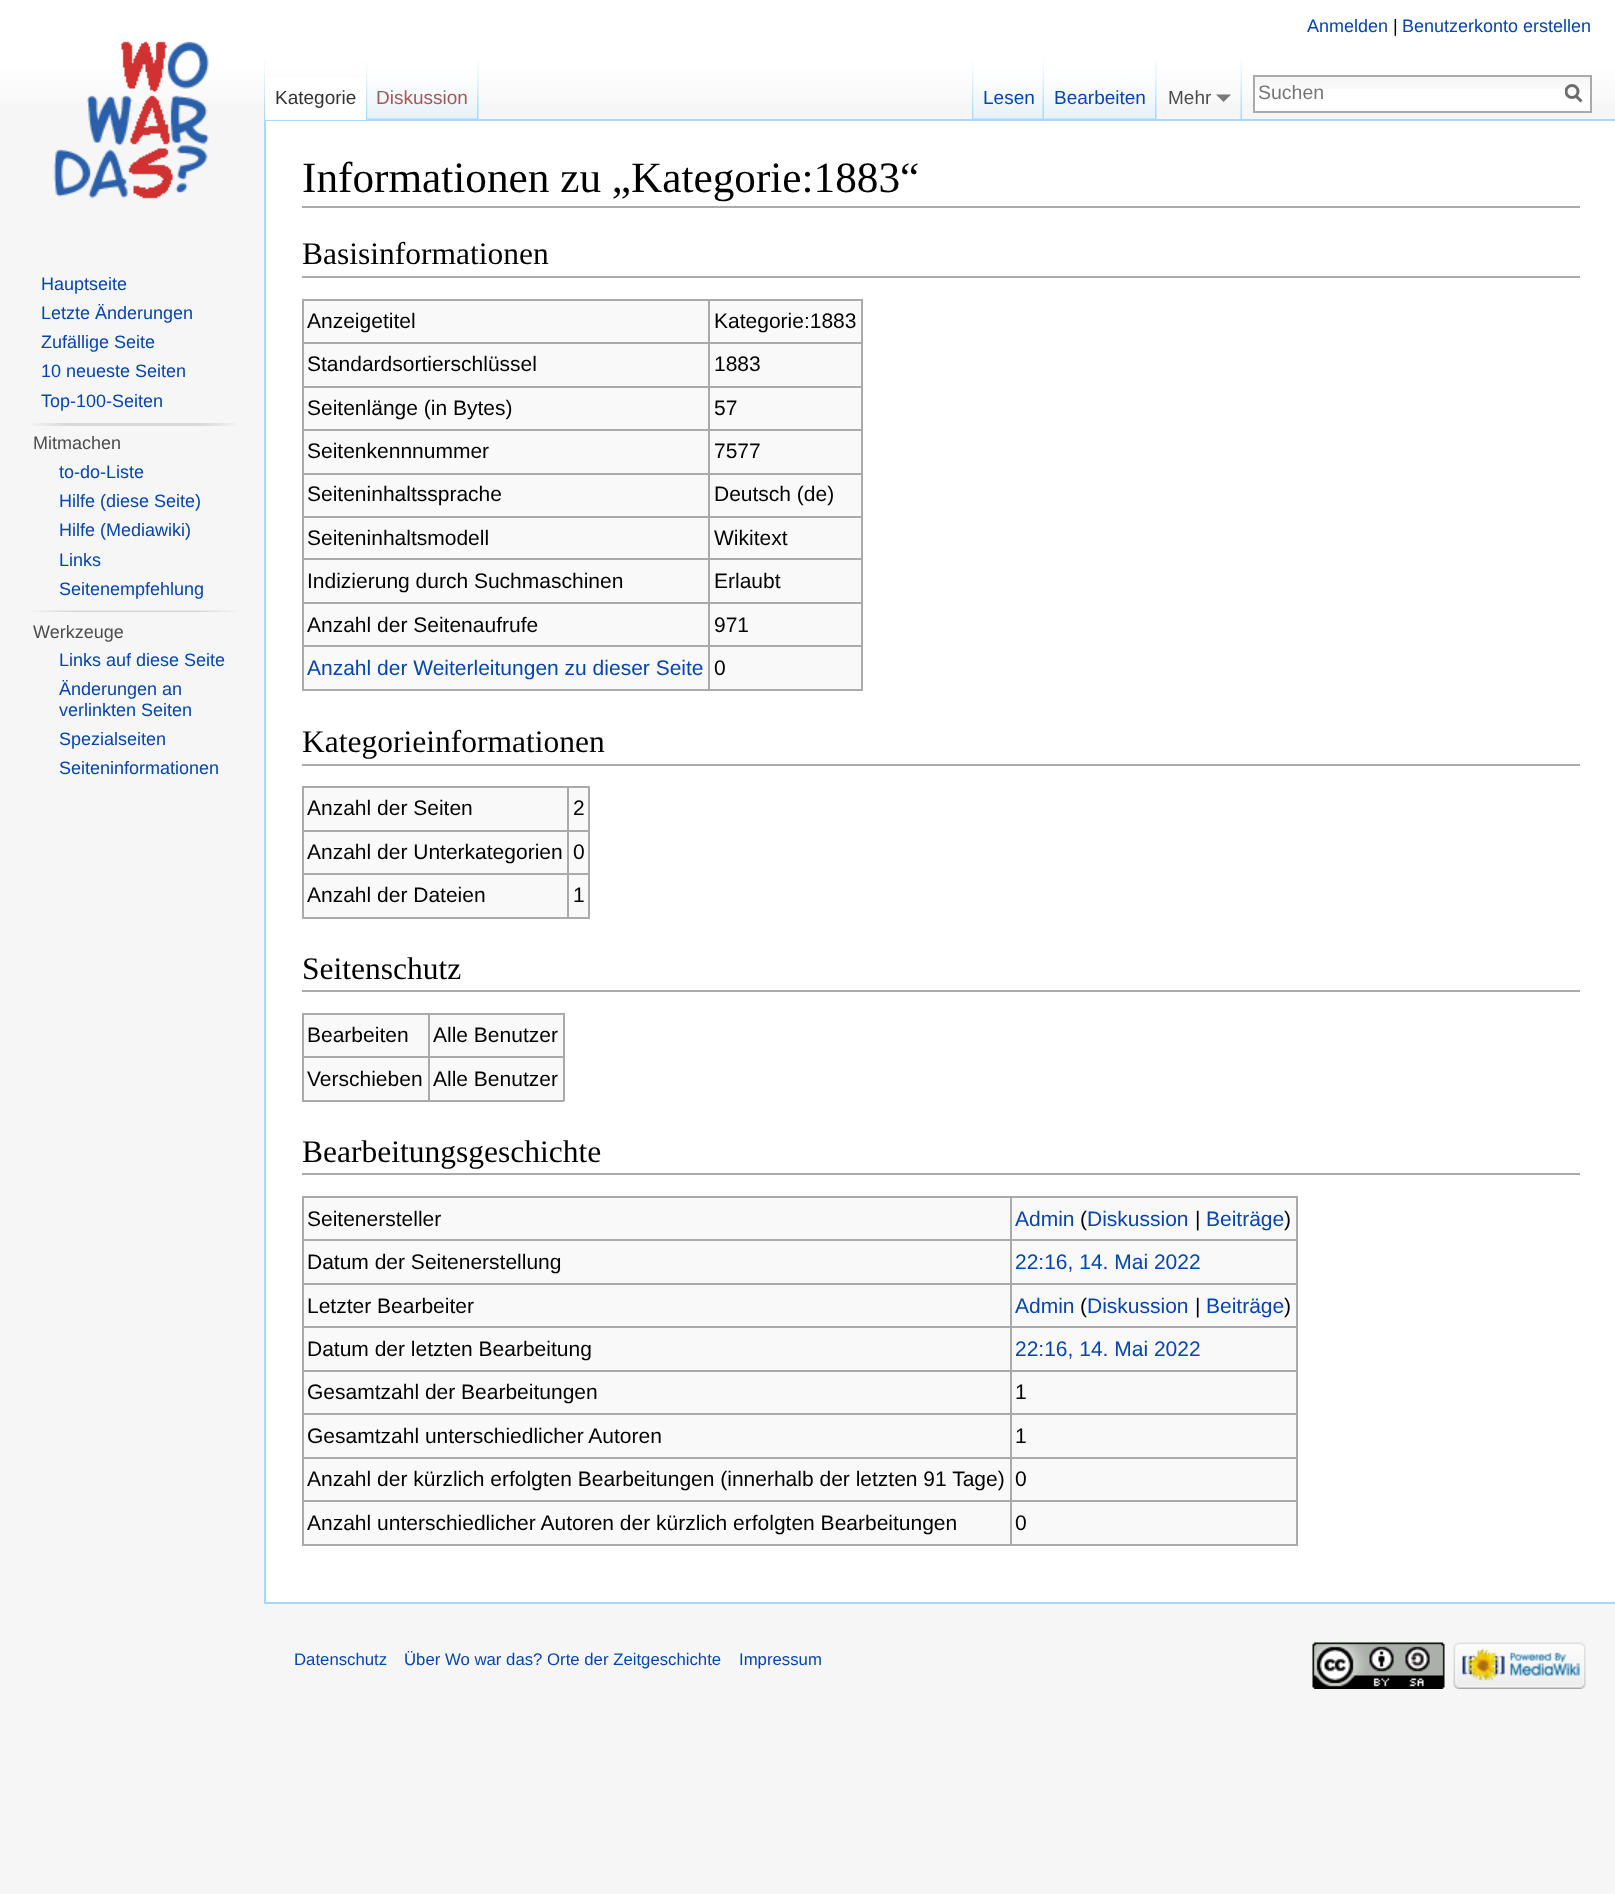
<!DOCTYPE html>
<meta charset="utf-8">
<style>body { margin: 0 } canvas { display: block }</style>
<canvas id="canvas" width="1615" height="1894"></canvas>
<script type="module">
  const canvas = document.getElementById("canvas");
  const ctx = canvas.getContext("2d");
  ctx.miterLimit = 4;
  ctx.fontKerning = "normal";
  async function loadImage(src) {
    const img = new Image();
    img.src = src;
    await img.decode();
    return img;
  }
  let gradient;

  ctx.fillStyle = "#f6f6f6";
  ctx.fillRect(0, 0, 1615, 1894);
  gradient = ctx.createLinearGradient(808, 0, 808, 120);
  gradient.addColorStop(0.5, "#ffffff");
  gradient.addColorStop(1, "#f6f6f6");
  ctx.fillStyle = gradient;
  ctx.fillRect(0, 0, 1615, 103);
  ctx.font = "18px Liberation Sans";
  ctx.fillStyle = "#0645ad";
  ctx.fillText("Anmelden", 1307, 32);
  ctx.fillStyle = "#000000";
  ctx.fillText("|", 1393, 32);
  ctx.fillStyle = "#0645ad";
  ctx.fillText("Benutzerkonto erstellen", 1402, 32);
  ctx.drawImage(await loadImage("img1.png"), 264, 60, 1, 59);
  ctx.fillStyle = "#a7d7f9";
  ctx.fillRect(264, 119, 1351, 2);
  ctx.fillRect(264, 1602, 1351, 2);
  ctx.fillRect(264, 119, 2, 1485);
  ctx.fillStyle = "#ffffff";
  ctx.fillRect(265, 77, 103, 43);
  ctx.drawImage(await loadImage("img2.png"), 366, 61, 2, 59);
  ctx.font = "19px Liberation Sans";
  ctx.fillStyle = "#333333";
  ctx.fillText("Kategorie", 275, 104);
  ctx.fillStyle = "#f3f3f3";
  ctx.fillRect(478, 60, 1, 60);
  ctx.drawImage(await loadImage("img3.png"), 367, 60, 112, 60);
  ctx.drawImage(await loadImage("img4.png"), 477, 61, 2, 59);
  ctx.fillStyle = "#a55858";
  ctx.fillText("Diskussion", 376, 104);
  ctx.drawImage(await loadImage("img5.png"), 972, 60, 2, 59);
  ctx.drawImage(await loadImage("img6.png"), 973, 60, 71, 60);
  ctx.drawImage(await loadImage("img7.png"), 1042, 61, 2, 58);
  ctx.fillStyle = "#0645ad";
  ctx.fillText("Lesen", 983, 104);
  ctx.fillStyle = "#f3f3f3";
  ctx.fillRect(1156, 60, 1, 60);
  ctx.drawImage(await loadImage("img8.png"), 1044, 60, 113, 60);
  ctx.drawImage(await loadImage("img4.png"), 1155, 61, 2, 59);
  ctx.fillStyle = "#0645ad";
  ctx.fillText("Bearbeiten", 1054, 104);
  ctx.drawImage(await loadImage("img9.png"), 1240, 60, 2, 59);
  ctx.fillStyle = "#4d4d4d";
  ctx.fillText("Mehr", 1168, 104);
  ctx.fillStyle = "#797979";
  ctx.beginPath();
  ctx.moveTo(1231, 94.5);
  ctx.lineTo(1223.5, 102);
  ctx.lineTo(1216, 94.5);
  ctx.closePath();
  ctx.fill();
  ctx.fillStyle = "#ffffff";
  ctx.fillRect(1255, 89, 335, 22);
  ctx.drawImage(await loadImage("img10.png"), 1255, 77, 335, 12);
  ctx.strokeStyle = "#aaaaaa";
  ctx.lineWidth = 2;
  ctx.strokeRect(1254, 76, 337, 36);
  ctx.font = "19.5px Liberation Sans";
  ctx.fillStyle = "#757575";
  ctx.fillText("Suchen", 1258, 99);
  ctx.beginPath();
  ctx.moveTo(1581.5, 101.5);
  ctx.lineTo(1575.5, 95.5);
  ctx.strokeStyle = "#6c6c6c";
  ctx.lineWidth = 3;
  ctx.stroke();
  ctx.save();
  ctx.beginPath();
  ctx.rect(1565, 84, 18, 20);
  ctx.clip();
  ctx.beginPath();
  ctx.arc(1572, 91.5, 6, 0, Math.PI * 2);
  ctx.stroke();
  ctx.restore();
  ctx.drawImage(await loadImage("img11.png"), 53, 41, 156, 158);
  ctx.font = "18px Liberation Sans";
  ctx.fillStyle = "#0645ad";
  ctx.fillText("Hauptseite", 41, 290);
  ctx.fillText("Letzte Änderungen", 41, 319);
  ctx.fillText("Zufällige Seite", 41, 348);
  ctx.fillText("10 neueste Seiten", 41, 377);
  ctx.fillText("Top-100-Seiten", 41, 407);
  ctx.drawImage(await loadImage("img12.png"), 32, 423, 204, 3);
  ctx.fillStyle = "#4d4d4d";
  ctx.fillText("Mitmachen", 33, 449);
  ctx.fillStyle = "#0645ad";
  ctx.fillText("to-do-Liste", 59, 478);
  ctx.fillText("Hilfe (diese Seite)", 59, 507);
  ctx.fillText("Hilfe (Mediawiki)", 59, 536);
  ctx.fillText("Links", 59, 566);
  ctx.fillText("Seitenempfehlung", 59, 595);
  ctx.drawImage(await loadImage("img13.png"), 32, 610, 204, 2);
  ctx.fillStyle = "#4d4d4d";
  ctx.fillText("Werkzeuge", 33, 638);
  ctx.fillStyle = "#0645ad";
  ctx.fillText("Links auf diese Seite", 59, 666);
  ctx.fillText("Änderungen an", 59, 695);
  ctx.fillText("verlinkten Seiten", 59, 716);
  ctx.fillText("Spezialseiten", 59, 745);
  ctx.fillText("Seiteninformationen", 59, 774);
  ctx.fillStyle = "#ffffff";
  ctx.fillRect(266, 121, 1349, 1481);
  ctx.fillStyle = "#aaaaaa";
  ctx.fillRect(302, 206, 1278, 2);
  ctx.font = "43.25px Liberation Serif";
  ctx.fillStyle = "#000000";
  ctx.fillText("Informationen zu „Kategorie:1883“", 302, 192);
  ctx.fillStyle = "#aaaaaa";
  ctx.fillRect(302, 276, 1278, 2);
  ctx.font = "31.5px Liberation Serif";
  ctx.fillStyle = "#000000";
  ctx.fillText("Basisinformationen", 302, 264);
  ctx.fillStyle = "#f9f9f9";
  ctx.fillRect(304, 301, 557, 388);
  ctx.fillStyle = "#aaaaaa";
  ctx.fillRect(302, 299, 561, 2);
  ctx.fillRect(861, 299, 2, 391);
  ctx.fillRect(302, 689, 561, 2);
  ctx.fillRect(302, 299, 2, 391);
  ctx.font = "21px Liberation Sans";
  ctx.fillStyle = "#000000";
  ctx.fillText("Anzeigetitel", 307, 328);
  ctx.fillStyle = "#aaaaaa";
  ctx.fillRect(708, 342, 155, 2);
  ctx.fillRect(708, 386, 155, 2);
  ctx.fillRect(708, 429, 155, 2);
  ctx.fillRect(708, 473, 155, 2);
  ctx.fillRect(708, 516, 155, 2);
  ctx.fillRect(708, 558, 155, 2);
  ctx.fillRect(708, 602, 155, 2);
  ctx.fillRect(708, 645, 155, 2);
  ctx.fillRect(708, 645, 2, 45);
  ctx.fillRect(302, 645, 408, 2);
  ctx.fillRect(708, 602, 2, 45);
  ctx.fillRect(302, 602, 408, 2);
  ctx.fillRect(708, 558, 2, 45);
  ctx.fillRect(302, 558, 408, 2);
  ctx.fillRect(708, 516, 2, 44);
  ctx.fillRect(302, 516, 408, 2);
  ctx.fillRect(708, 473, 2, 45);
  ctx.fillRect(302, 473, 408, 2);
  ctx.fillRect(708, 429, 2, 45);
  ctx.fillRect(302, 429, 408, 2);
  ctx.fillRect(708, 386, 2, 45);
  ctx.fillRect(302, 386, 408, 2);
  ctx.fillRect(708, 342, 2, 45);
  ctx.fillRect(302, 342, 408, 2);
  ctx.fillRect(708, 299, 2, 45);
  ctx.fillStyle = "#000000";
  ctx.fillText("Kategorie:1883", 714, 328);
  ctx.fillText("Standardsortierschlüssel", 307, 371);
  ctx.fillText("1883", 714, 371);
  ctx.fillText("Seitenlänge (in Bytes)", 307, 415);
  ctx.fillText("57", 714, 415);
  ctx.fillText("Seitenkennnummer", 307, 458);
  ctx.fillText("7577", 714, 458);
  ctx.fillText("Seiteninhaltssprache", 307, 501);
  ctx.fillText("Deutsch (de)", 714, 501);
  ctx.fillText("Seiteninhaltsmodell", 307, 545);
  ctx.fillText("Wikitext", 714, 545);
  ctx.fillText("Indizierung durch Suchmaschinen", 307, 588);
  ctx.fillText("Erlaubt", 714, 588);
  ctx.fillText("Anzahl der Seitenaufrufe", 307, 632);
  ctx.fillText("971", 714, 632);
  ctx.fillStyle = "#0645ad";
  ctx.fillText("Anzahl der Weiterleitungen zu dieser Seite", 307, 675);
  ctx.fillStyle = "#000000";
  ctx.fillText("0", 714, 675);
  ctx.fillStyle = "#aaaaaa";
  ctx.fillRect(302, 764, 1278, 2);
  ctx.font = "31.5px Liberation Serif";
  ctx.fillStyle = "#000000";
  ctx.fillText("Kategorieinformationen", 302, 752);
  ctx.fillStyle = "#f9f9f9";
  ctx.fillRect(304, 788, 284, 129);
  ctx.fillStyle = "#aaaaaa";
  ctx.fillRect(302, 786, 288, 2);
  ctx.fillRect(588, 786, 2, 132);
  ctx.fillRect(302, 917, 288, 2);
  ctx.fillRect(302, 786, 2, 132);
  ctx.font = "21px Liberation Sans";
  ctx.fillStyle = "#000000";
  ctx.fillText("Anzahl der Seiten", 307, 815);
  ctx.fillStyle = "#aaaaaa";
  ctx.fillRect(567, 830, 23, 2);
  ctx.fillRect(567, 873, 23, 2);
  ctx.fillRect(567, 873, 2, 45);
  ctx.fillRect(302, 873, 267, 2);
  ctx.fillRect(567, 830, 2, 45);
  ctx.fillRect(302, 830, 267, 2);
  ctx.fillRect(567, 786, 2, 45);
  ctx.fillStyle = "#000000";
  ctx.fillText("2", 573, 815);
  ctx.fillText("Anzahl der Unterkategorien", 307, 859);
  ctx.fillText("0", 573, 859);
  ctx.fillText("Anzahl der Dateien", 307, 902);
  ctx.fillText("1", 573, 902);
  ctx.fillStyle = "#aaaaaa";
  ctx.fillRect(302, 990, 1278, 2);
  ctx.font = "31.5px Liberation Serif";
  ctx.fillStyle = "#000000";
  ctx.fillText("Seitenschutz", 302, 979);
  ctx.fillStyle = "#f9f9f9";
  ctx.fillRect(304, 1015, 259, 85);
  ctx.fillStyle = "#aaaaaa";
  ctx.fillRect(302, 1013, 262, 2);
  ctx.fillRect(563, 1013, 2, 88);
  ctx.fillRect(302, 1100, 262, 2);
  ctx.fillRect(302, 1013, 2, 88);
  ctx.font = "21px Liberation Sans";
  ctx.fillStyle = "#000000";
  ctx.fillText("Bearbeiten", 307, 1042);
  ctx.fillStyle = "#aaaaaa";
  ctx.fillRect(428, 1056, 136, 2);
  ctx.fillRect(428, 1056, 2, 45);
  ctx.fillRect(302, 1056, 127, 2);
  ctx.fillRect(428, 1013, 2, 45);
  ctx.fillStyle = "#000000";
  ctx.fillText("Alle Benutzer", 433, 1042);
  ctx.fillText("Verschieben", 307, 1086);
  ctx.fillText("Alle Benutzer", 433, 1086);
  ctx.fillStyle = "#aaaaaa";
  ctx.fillRect(302, 1173, 1278, 2);
  ctx.font = "31.5px Liberation Serif";
  ctx.fillStyle = "#000000";
  ctx.fillText("Bearbeitungsgeschichte", 302, 1162);
  ctx.fillStyle = "#f9f9f9";
  ctx.fillRect(304, 1198, 992, 346);
  ctx.fillStyle = "#aaaaaa";
  ctx.fillRect(302, 1196, 996, 2);
  ctx.fillRect(1296, 1196, 2, 349);
  ctx.fillRect(302, 1544, 996, 2);
  ctx.fillRect(302, 1196, 2, 349);
  ctx.font = "21px Liberation Sans";
  ctx.fillStyle = "#000000";
  ctx.fillText("Seitenersteller", 307, 1226);
  ctx.fillStyle = "#aaaaaa";
  ctx.fillRect(1010, 1239, 288, 2);
  ctx.fillRect(1010, 1283, 288, 2);
  ctx.fillRect(1010, 1326, 288, 2);
  ctx.fillRect(1010, 1370, 288, 2);
  ctx.fillRect(1010, 1413, 288, 2);
  ctx.fillRect(1010, 1457, 288, 2);
  ctx.fillRect(1010, 1500, 288, 2);
  ctx.fillRect(1010, 1500, 2, 45);
  ctx.fillRect(302, 1500, 709, 2);
  ctx.fillRect(1010, 1457, 2, 45);
  ctx.fillRect(302, 1457, 709, 2);
  ctx.fillRect(1010, 1413, 2, 45);
  ctx.fillRect(302, 1413, 709, 2);
  ctx.fillRect(1010, 1370, 2, 45);
  ctx.fillRect(302, 1370, 709, 2);
  ctx.fillRect(1010, 1326, 2, 45);
  ctx.fillRect(302, 1326, 709, 2);
  ctx.fillRect(1010, 1283, 2, 45);
  ctx.fillRect(302, 1283, 709, 2);
  ctx.fillRect(1010, 1239, 2, 45);
  ctx.fillRect(302, 1239, 709, 2);
  ctx.fillRect(1010, 1196, 2, 45);
  ctx.fillStyle = "#0645ad";
  ctx.fillText("Admin", 1015, 1226);
  ctx.fillStyle = "#000000";
  ctx.fillText("(", 1080, 1226);
  ctx.fillStyle = "#0645ad";
  ctx.fillText("Diskussion", 1087, 1226);
  ctx.fillStyle = "#000000";
  ctx.fillText("|", 1195, 1226);
  ctx.fillStyle = "#0645ad";
  ctx.fillText("Beiträge", 1206, 1226);
  ctx.fillStyle = "#000000";
  ctx.fillText(")", 1284, 1226);
  ctx.fillText("Datum der Seitenerstellung", 307, 1269);
  ctx.fillStyle = "#0645ad";
  ctx.fillText("22:16, 14. Mai 2022", 1015, 1269);
  ctx.fillStyle = "#000000";
  ctx.fillText("Letzter Bearbeiter", 307, 1313);
  ctx.fillStyle = "#0645ad";
  ctx.fillText("Admin", 1015, 1313);
  ctx.fillStyle = "#000000";
  ctx.fillText("(", 1080, 1313);
  ctx.fillStyle = "#0645ad";
  ctx.fillText("Diskussion", 1087, 1313);
  ctx.fillStyle = "#000000";
  ctx.fillText("|", 1195, 1313);
  ctx.fillStyle = "#0645ad";
  ctx.fillText("Beiträge", 1206, 1313);
  ctx.fillStyle = "#000000";
  ctx.fillText(")", 1284, 1313);
  ctx.fillText("Datum der letzten Bearbeitung", 307, 1356);
  ctx.fillStyle = "#0645ad";
  ctx.fillText("22:16, 14. Mai 2022", 1015, 1356);
  ctx.fillStyle = "#000000";
  ctx.fillText("Gesamtzahl der Bearbeitungen", 307, 1399);
  ctx.fillText("1", 1015, 1399);
  ctx.fillText("Gesamtzahl unterschiedlicher Autoren", 307, 1443);
  ctx.fillText("1", 1015, 1443);
  ctx.fillText("Anzahl der kürzlich erfolgten Bearbeitungen (innerhalb der letzten 91 Tage)", 307, 1486);
  ctx.fillText("0", 1015, 1486);
  ctx.fillText("Anzahl unterschiedlicher Autoren der kürzlich erfolgten Bearbeitungen", 307, 1530);
  ctx.fillText("0", 1015, 1530);
  ctx.font = "16.75px Liberation Sans";
  ctx.fillStyle = "#0645ad";
  ctx.fillText("Datenschutz", 294, 1665);
  ctx.fillText("Über Wo war das? Orte der Zeitgeschichte", 404, 1665);
  ctx.fillText("Impressum", 739, 1665);
  ctx.drawImage(await loadImage("img14.png"), 1312, 1642, 133, 47);
  ctx.drawImage(await loadImage("img15.png"), 1453, 1642, 133, 47);
</script>
